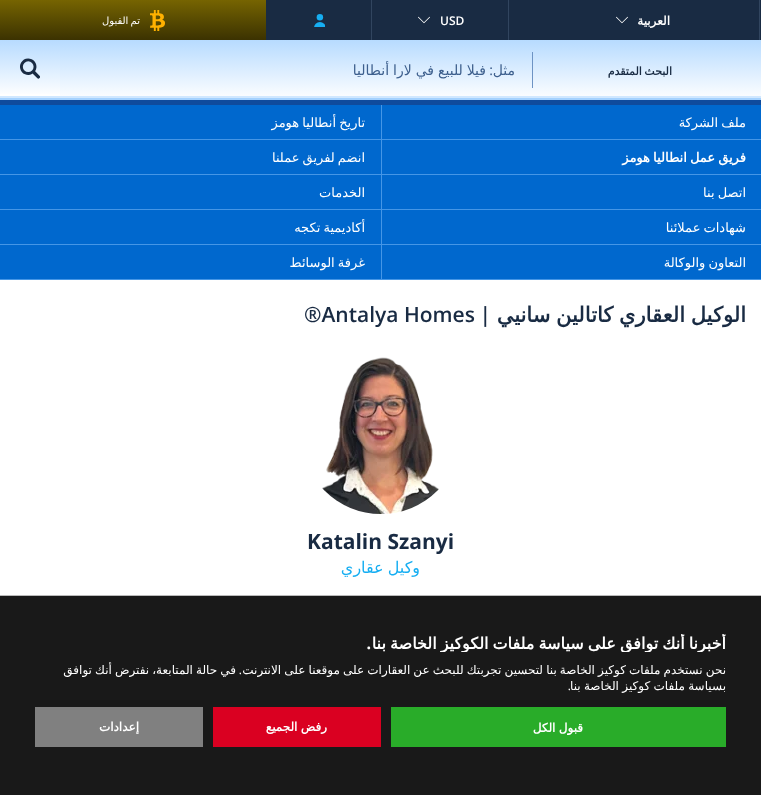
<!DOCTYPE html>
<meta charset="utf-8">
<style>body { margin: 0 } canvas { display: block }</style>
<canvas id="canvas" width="761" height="795"></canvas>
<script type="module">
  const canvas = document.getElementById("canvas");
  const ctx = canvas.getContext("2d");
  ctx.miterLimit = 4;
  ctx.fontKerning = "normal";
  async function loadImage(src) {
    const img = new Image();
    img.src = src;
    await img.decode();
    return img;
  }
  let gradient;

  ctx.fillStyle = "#ffffff";
  ctx.fillRect(0, 0, 761, 795);
  ctx.fillStyle = "#192b43";
  ctx.fillRect(266, 0, 495, 40);
  ctx.fillStyle = "#31455f";
  ctx.fillRect(759, 0, 1, 40);
  ctx.direction = "rtl";
  ctx.font = "bold 12px DejaVu Sans";
  ctx.fillStyle = "#ffffff";
  ctx.fillText("العربية", 670, 25);
  ctx.drawImage(await loadImage("img1.png"), 616, 16, 12, 8);
  ctx.fillStyle = "#31455f";
  ctx.fillRect(508, 0, 1, 40);
  ctx.direction = "ltr";
  ctx.font = "600 12px Open Sans";
  ctx.fillStyle = "#ffffff";
  ctx.fillText("USD", 440, 25);
  ctx.drawImage(await loadImage("img1.png"), 418, 16, 12, 8);
  ctx.fillStyle = "#31455f";
  ctx.fillRect(371, 0, 1, 40);
  ctx.drawImage(await loadImage("img2.png"), 314, 14, 11, 13);
  gradient = ctx.createLinearGradient(133, 0, 133, 40);
  gradient.addColorStop(0, "#766401");
  gradient.addColorStop(1, "#3b3201");
  ctx.fillStyle = gradient;
  ctx.fillRect(0, 0, 266, 40);
  ctx.drawImage(await loadImage("img3.png"), 150, 10, 15, 21);
  ctx.wordSpacing = "-1px";
  ctx.direction = "rtl";
  ctx.font = "10px DejaVu Sans";
  ctx.fillStyle = "#ffffff";
  ctx.fillText("تم القبول", 140, 24);
  gradient = ctx.createLinearGradient(381, 40, 381, 100);
  gradient.addColorStop(0, "#b7dbff");
  gradient.addColorStop(1, "#ffffff");
  ctx.fillStyle = gradient;
  ctx.fillRect(60, 40, 701, 56);
  ctx.font = "bold 11px DejaVu Sans";
  ctx.fillStyle = "#192b43";
  ctx.fillText("البحث المتقدم", 672, 75);
  ctx.fillStyle = "#6d93c4";
  ctx.fillRect(532, 52, 1, 36);
  ctx.wordSpacing = "0px";
  ctx.font = "14px DejaVu Sans";
  ctx.fillStyle = "#3d5f8d";
  ctx.fillText("مثل", 515, 75);
  ctx.font = "14px Open Sans";
  ctx.fillText(":", 493, 75);
  ctx.wordSpacing = "-0.5px";
  ctx.font = "14px DejaVu Sans";
  ctx.fillText("فيلا للبيع في لارا أنطاليا", 486, 75);
  gradient = ctx.createLinearGradient(30, 40, 30, 96);
  gradient.addColorStop(0, "#b7dbff");
  gradient.addColorStop(1, "#ffffff");
  ctx.fillStyle = gradient;
  ctx.fillRect(0, 40, 60, 54);
  ctx.drawImage(await loadImage("img4.png"), 20, 58, 20, 21);
  ctx.fillStyle = "#d1e8ff";
  ctx.fillRect(0, 96, 761, 2);
  ctx.fillStyle = "#a5d2ff";
  ctx.fillRect(0, 98, 761, 2);
  ctx.fillStyle = "#0f4b9d";
  ctx.fillRect(0, 100, 761, 5);
  ctx.fillStyle = "#0068ce";
  ctx.fillRect(0, 105, 761, 174);
  ctx.fillStyle = "#4596e6";
  ctx.fillRect(0, 139, 761, 1);
  ctx.fillRect(381, 105, 1, 35);
  ctx.wordSpacing = "-1px";
  ctx.font = "13px DejaVu Sans";
  ctx.fillStyle = "#ffffff";
  ctx.fillText("ملف الشركة", 746, 127);
  ctx.fillText("تاريخ أنطاليا هومز", 365, 127);
  ctx.fillStyle = "#4596e6";
  ctx.fillRect(0, 174, 761, 1);
  ctx.fillRect(381, 140, 1, 35);
  ctx.font = "bold 13px DejaVu Sans";
  ctx.fillStyle = "#ffffff";
  ctx.fillText("فريق عمل انطاليا هومز", 746, 162);
  ctx.font = "13px DejaVu Sans";
  ctx.fillText("انضم لفريق عملنا", 365, 162);
  ctx.fillStyle = "#4596e6";
  ctx.fillRect(0, 209, 761, 1);
  ctx.fillRect(381, 175, 1, 35);
  ctx.fillStyle = "#ffffff";
  ctx.fillText("اتصل بنا", 746, 197);
  ctx.wordSpacing = "0px";
  ctx.fillText("الخدمات", 365, 197);
  ctx.fillStyle = "#4596e6";
  ctx.fillRect(0, 244, 761, 1);
  ctx.fillRect(381, 210, 1, 35);
  ctx.wordSpacing = "-1px";
  ctx.fillStyle = "#ffffff";
  ctx.fillText("شهادات عملائنا", 746, 232);
  ctx.fillText("أكاديمية تكجه", 365, 232);
  ctx.fillStyle = "#4596e6";
  ctx.fillRect(0, 279, 761, 1);
  ctx.fillRect(381, 245, 1, 35);
  ctx.fillStyle = "#ffffff";
  ctx.fillText("التعاون والوكالة", 746, 267);
  ctx.fillText("غرفة الوسائط", 365, 267);
  ctx.font = "bold 21px DejaVu Sans";
  ctx.fillStyle = "#192b43";
  ctx.fillText("الوكيل العقاري كاتالين سانيي", 746, 322);
  ctx.wordSpacing = "0px";
  ctx.font = "600 21px Open Sans";
  ctx.fillText("|", 491, 322);
  ctx.direction = "ltr";
  ctx.fillText("®Antalya Homes", 304, 322);
  ctx.drawImage(await loadImage("img5.png"), 322, 357, 117, 157);
  ctx.font = "bold 21px Open Sans";
  ctx.fillText("Katalin Szanyi", 307, 549);
  ctx.wordSpacing = "-1px";
  ctx.direction = "rtl";
  ctx.font = "16px DejaVu Sans";
  ctx.fillStyle = "#16aef2";
  ctx.fillText("وكيل عقاري", 420, 573);
  ctx.fillStyle = "#191919";
  ctx.fillRect(0, 596, 761, 199);
  ctx.fillStyle = "#bababa";
  ctx.fillRect(0, 595, 761, 1);
  ctx.save();
  ctx.beginPath();
  ctx.rect(35, 634, 691, 18);
  ctx.clip();
  ctx.font = "bold 16px DejaVu Sans";
  ctx.fillStyle = "#ffffff";
  ctx.fillText("أخبرنا أنك توافق على سياسة ملفات الكوكيز الخاصة بنا", 726, 649);
  ctx.restore();
  ctx.wordSpacing = "0px";
  ctx.font = "bold 16px Open Sans";
  ctx.fillStyle = "#ffffff";
  ctx.fillText(".", 371, 649);
  ctx.save();
  ctx.beginPath();
  ctx.rect(35, 662, 691, 32);
  ctx.clip();
  ctx.wordSpacing = "-0.7px";
  ctx.font = "12px DejaVu Sans";
  ctx.fillText("نحن نستخدم ملفات كوكيز الخاصة بنا لتحسين تجربتك للبحث عن العقارات على موقعنا على الانترنت", 726, 674);
  ctx.restore();
  ctx.font = "12px Open Sans";
  ctx.fillText(".", 242, 674);
  ctx.wordSpacing = "-0.7px";
  ctx.font = "12px DejaVu Sans";
  ctx.fillText("في حالة المتابعة، نفترض أنك توافق", 236, 674);
  ctx.save();
  ctx.beginPath();
  ctx.rect(35, 662, 691, 32);
  ctx.clip();
  ctx.wordSpacing = "-0.5px";
  ctx.fillText("بسياسة ملفات كوكيز الخاصة بنا", 726, 690);
  ctx.restore();
  ctx.wordSpacing = "0px";
  ctx.font = "12px Open Sans";
  ctx.fillText(".", 571, 690);
  ctx.fillStyle = "#29ac29";
  ctx.fillRect(391, 707, 335, 40);
  ctx.wordSpacing = "-0.5px";
  ctx.font = "bold 12px DejaVu Sans";
  ctx.fillStyle = "#ffffff";
  ctx.fillText("قبول الكل", 583, 732);
  ctx.fillStyle = "#da0021";
  ctx.fillRect(213, 707, 168, 40);
  ctx.fillStyle = "#ffffff";
  ctx.fillText("رفض الجميع", 327, 731);
  ctx.fillStyle = "#808080";
  ctx.fillRect(35, 707, 168, 40);
  ctx.wordSpacing = "0px";
  ctx.fillStyle = "#ffffff";
  ctx.fillText("إعدادات", 139, 731);
</script>
